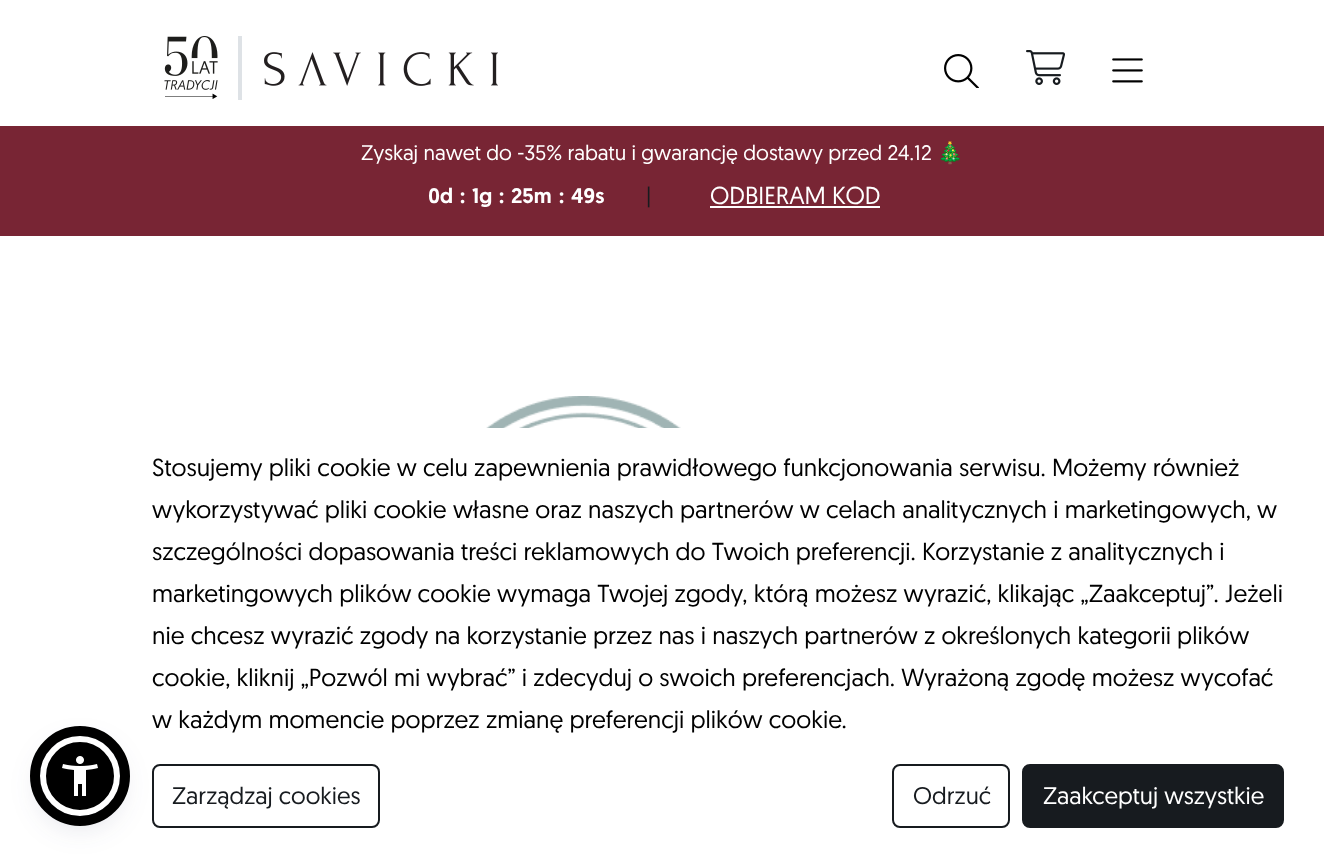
<!DOCTYPE html>
<meta charset="utf-8">
<style>body { margin: 0 } canvas { display: block }</style>
<canvas id="canvas" width="1324" height="856"></canvas>
<script type="module">
  const canvas = document.getElementById("canvas");
  const ctx = canvas.getContext("2d");
  ctx.miterLimit = 4;
  ctx.fontKerning = "normal";
  async function loadImage(src) {
    const img = new Image();
    img.src = src;
    await img.decode();
    return img;
  }

  ctx.fillStyle = "#ffffff";
  ctx.fillRect(0, 0, 1324, 856);
  ctx.fillStyle = "#dee2e6";
  ctx.fillRect(238, 36, 4, 64);
  ctx.drawImage(await loadImage("img1.png"), 164, 36, 54, 63);
  ctx.drawImage(await loadImage("img2.png"), 264, 52, 234, 34);
  ctx.drawImage(await loadImage("img3.png"), 944, 54, 35, 34);
  ctx.drawImage(await loadImage("img4.png"), 1026, 50, 39, 35);
  ctx.drawImage(await loadImage("img5.png"), 1112, 58, 31, 25);
  ctx.fillStyle = "#782534";
  ctx.fillRect(0, 126, 1324, 110);
  ctx.font = "21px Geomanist";
  ctx.fillStyle = "#ffffff";
  ctx.fillText("Zyskaj nawet do -35% rabatu i gwarancję dostawy przed 24.12", 361, 160);
  ctx.font = "21px Noto Color Emoji";
  ctx.fillText("🎄", 937, 160);
  ctx.font = "500 21px Geomanist";
  ctx.fillText("0d", 428, 203);
  ctx.fillText(":", 460, 203);
  ctx.fillText("1g", 472, 203);
  ctx.fillText(":", 499, 203);
  ctx.fillText("25m", 511, 203);
  ctx.fillText(":", 559, 203);
  ctx.fillText("49s", 571, 203);
  ctx.font = "21px Geomanist";
  ctx.fillStyle = "#171b1f";
  ctx.fillText("|", 646, 203);
  ctx.font = "24.5px Geomanist";
  ctx.fillStyle = "#ffffff";
  ctx.fillText("ODBIERAM KOD", 710, 204);
  ctx.fillRect(710, 206, 170, 2);
  ctx.drawImage(await loadImage("img6.png"), 486, 396, 195, 32);
  ctx.fillStyle = "rgba(93, 100, 148, 0.2)";
  ctx.filter = "blur(4px)";
  ctx.beginPath();
  ctx.roundRect(40, 740, 80, 80, 40);
  ctx.fill();
  ctx.filter = "none";
  ctx.beginPath();
  ctx.roundRect(153, 765, 226, 62, 7);
  ctx.strokeStyle = "#171b1f";
  ctx.lineWidth = 2;
  ctx.stroke();
  ctx.fillStyle = "rgba(37, 44, 97, 0.15)";
  ctx.filter = "blur(15px)";
  ctx.beginPath();
  ctx.roundRect(40, 746, 80, 80, 40);
  ctx.fill();
  ctx.filter = "none";
  ctx.fillStyle = "#000000";
  ctx.beginPath();
  ctx.arc(80, 776, 37, 0, Math.PI * 2);
  ctx.fill();
  ctx.strokeStyle = "#ffffff";
  ctx.lineWidth = 6;
  ctx.stroke();
  ctx.beginPath();
  ctx.arc(80, 776, 45, 0, Math.PI * 2);
  ctx.strokeStyle = "#000000";
  ctx.lineWidth = 10;
  ctx.stroke();
  ctx.drawImage(await loadImage("img7.png"), 62, 756, 36, 40);
  ctx.fillText("Stosujemy pliki cookie w celu zapewnienia prawidłowego funkcjonowania serwisu. Możemy również", 152, 476);
  ctx.fillText("wykorzystywać pliki cookie własne oraz naszych partnerów w celach analitycznych i marketingowych, w", 152, 518);
  ctx.fillText("szczególności dopasowania treści reklamowych do Twoich preferencji. Korzystanie z analitycznych i", 152, 560);
  ctx.fillText("marketingowych plików cookie wymaga Twojej zgody, którą możesz wyrazić, klikając „Zaakceptuj”. Jeżeli", 152, 602);
  ctx.fillText("nie chcesz wyrazić zgody na korzystanie przez nas i naszych partnerów z określonych kategorii plików", 152, 644);
  ctx.fillText("cookie, kliknij „Pozwól mi wybrać” i zdecyduj o swoich preferencjach. Wyrażoną zgodę możesz wycofać", 152, 686);
  ctx.fillText("w każdym momencie poprzez zmianę preferencji plików cookie.", 152, 728);
  ctx.font = "24px Geomanist";
  ctx.fillStyle = "#171b1f";
  ctx.fillText("Zarządzaj cookies", 172, 804);
  ctx.beginPath();
  ctx.roundRect(893, 765, 116, 62, 7);
  ctx.strokeStyle = "#171b1f";
  ctx.lineWidth = 2;
  ctx.stroke();
  ctx.fillText("Odrzuć", 913, 804);
  ctx.beginPath();
  ctx.roundRect(1023, 765, 260, 62, 7);
  ctx.fill();
  ctx.stroke();
  ctx.fillStyle = "#ffffff";
  ctx.fillText("Zaakceptuj wszystkie", 1043, 804);
</script>
